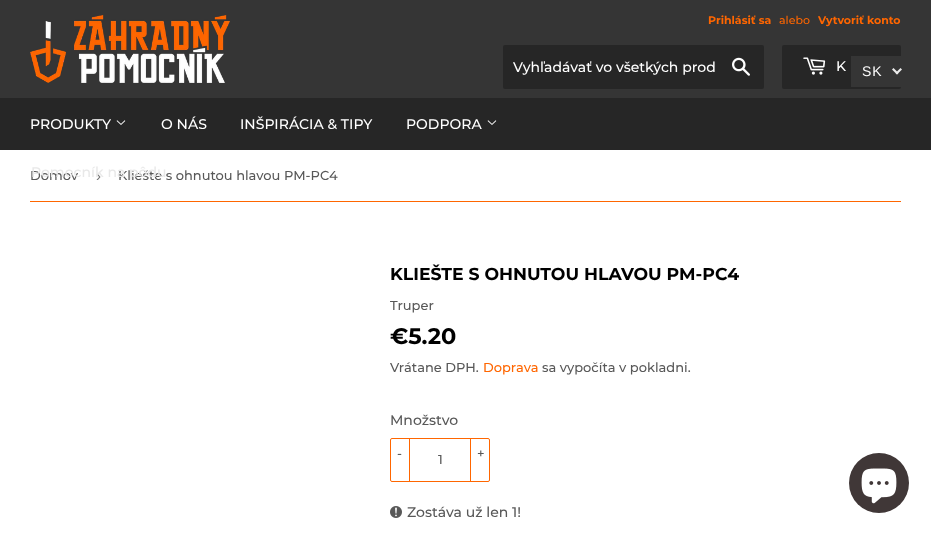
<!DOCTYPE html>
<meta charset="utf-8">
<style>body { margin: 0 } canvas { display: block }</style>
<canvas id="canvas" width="931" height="534"></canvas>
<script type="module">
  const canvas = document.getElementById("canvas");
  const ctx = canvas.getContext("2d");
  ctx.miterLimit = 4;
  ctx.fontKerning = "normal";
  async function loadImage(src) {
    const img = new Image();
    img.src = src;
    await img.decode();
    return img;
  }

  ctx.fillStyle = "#ffffff";
  ctx.fillRect(0, 0, 931, 534);
  ctx.fillStyle = "#353535";
  ctx.fillRect(0, 0, 931, 98);
  ctx.drawImage(await loadImage("img1.png"), 30, 15, 200, 68);
  ctx.font = "bold 11px Montserrat";
  ctx.fillStyle = "#ff6600";
  ctx.fillText("Prihlásiť sa", 708, 24);
  ctx.font = "500 11px Montserrat";
  ctx.fillText("alebo", 779, 24);
  ctx.font = "bold 11px Montserrat";
  ctx.fillText("Vytvoriť konto", 818, 24);
  ctx.fillStyle = "#262626";
  ctx.beginPath();
  ctx.roundRect(503, 45, 261, 44, 2);
  ctx.fill();
  ctx.font = "500 14px Montserrat";
  ctx.fillStyle = "#ffffff";
  ctx.fillText("Vyhľadávať vo všetkých prod", 513, 72);
  ctx.drawImage(await loadImage("img2.png"), 732, 57, 18, 19);
  ctx.fillStyle = "#262626";
  ctx.beginPath();
  ctx.roundRect(782, 45, 119, 44, 2);
  ctx.fill();
  ctx.drawImage(await loadImage("img3.png"), 803, 57, 23, 18);
  ctx.fillStyle = "#ffffff";
  ctx.fillText("K", 836, 71);
  ctx.fillStyle = "#262626";
  ctx.fillRect(0, 98, 931, 52);
  ctx.fillStyle = "#ffffff";
  ctx.fillText("PRODUKTY", 30, 129);
  ctx.drawImage(await loadImage("img4.png"), 116, 120, 10, 5);
  ctx.font = "500 13px Montserrat";
  ctx.fillStyle = "#585858";
  ctx.fillText("Domov", 30, 180);
  ctx.font = "15px Liberation Sans";
  ctx.fillStyle = "#767676";
  ctx.fillText("›", 96, 181);
  ctx.font = "500 13px Montserrat";
  ctx.fillStyle = "#585858";
  ctx.fillText("Kliešte s ohnutou hlavou PM-PC4", 118, 180);
  ctx.font = "500 14px Montserrat";
  ctx.fillStyle = "#e8e8e8";
  ctx.fillText("Pomocník na pôdu", 31, 177);
  ctx.fillStyle = "#ffffff";
  ctx.fillText("O NÁS", 161, 129);
  ctx.fillText("INŠPIRÁCIA & TIPY", 240, 129);
  ctx.fillText("PODPORA", 406, 129);
  ctx.drawImage(await loadImage("img4.png"), 487, 120, 10, 5);
  ctx.fillStyle = "#353535";
  ctx.fillRect(851, 56, 50, 31);
  ctx.letterSpacing = "1px";
  ctx.font = "14px Liberation Sans";
  ctx.fillStyle = "#ffffff";
  ctx.fillText("SK", 862, 76);
  ctx.fillStyle = "#ebebeb";
  ctx.beginPath();
  ctx.moveTo(900.5, 68);
  ctx.lineTo(902, 69.5);
  ctx.lineTo(897, 74.5);
  ctx.lineTo(895.5, 73);
  ctx.closePath();
  ctx.fill();
  ctx.beginPath();
  ctx.moveTo(893.5, 68);
  ctx.lineTo(898.5, 73);
  ctx.lineTo(897, 74.5);
  ctx.lineTo(892, 69.5);
  ctx.closePath();
  ctx.fill();
  ctx.fillStyle = "#ff6600";
  ctx.fillRect(30, 201, 871, 1);
  ctx.letterSpacing = "0px";
  ctx.font = "bold 17.3px Montserrat";
  ctx.fillStyle = "#000000";
  ctx.fillText("KLIEŠTE S OHNUTOU HLAVOU PM-PC4", 390, 280);
  ctx.font = "500 13px Montserrat";
  ctx.fillStyle = "#585858";
  ctx.fillText("Truper", 390, 310);
  ctx.font = "bold 22.5px Montserrat";
  ctx.fillStyle = "#000000";
  ctx.fillText("€5.20", 390, 344);
  ctx.font = "500 13px Montserrat";
  ctx.fillStyle = "#585858";
  ctx.fillText("Vrátane DPH.", 390, 372);
  ctx.fillStyle = "#ff6600";
  ctx.fillText("Doprava", 483, 372);
  ctx.fillStyle = "#585858";
  ctx.fillText("sa vypočíta v pokladni.", 542, 372);
  ctx.font = "500 14px Montserrat";
  ctx.fillText("Množstvo", 390, 425);
  ctx.beginPath();
  ctx.roundRect(390.5, 438.5, 99, 43, 1.5);
  ctx.strokeStyle = "#ff6600";
  ctx.stroke();
  ctx.fillStyle = "#ff6600";
  ctx.fillRect(409, 438, 1, 44);
  ctx.font = "500 13px Montserrat";
  ctx.fillStyle = "#585858";
  ctx.fillText("-", 397, 458);
  ctx.fillText("1", 438, 464);
  ctx.fillStyle = "#ff6600";
  ctx.fillRect(470, 438, 1, 44);
  ctx.fillStyle = "#585858";
  ctx.fillText("+", 477, 458);
  ctx.drawImage(await loadImage("img5.png"), 390, 506, 12, 12);
  ctx.font = "500 14px Montserrat";
  ctx.fillText("Zostáva už len 1!", 407, 517);
  ctx.fillStyle = "#403737";
  ctx.beginPath();
  ctx.arc(879, 483, 30, 0, Math.PI * 2);
  ctx.fill();
  ctx.drawImage(await loadImage("img6.png"), 861, 468, 36, 36);
</script>
